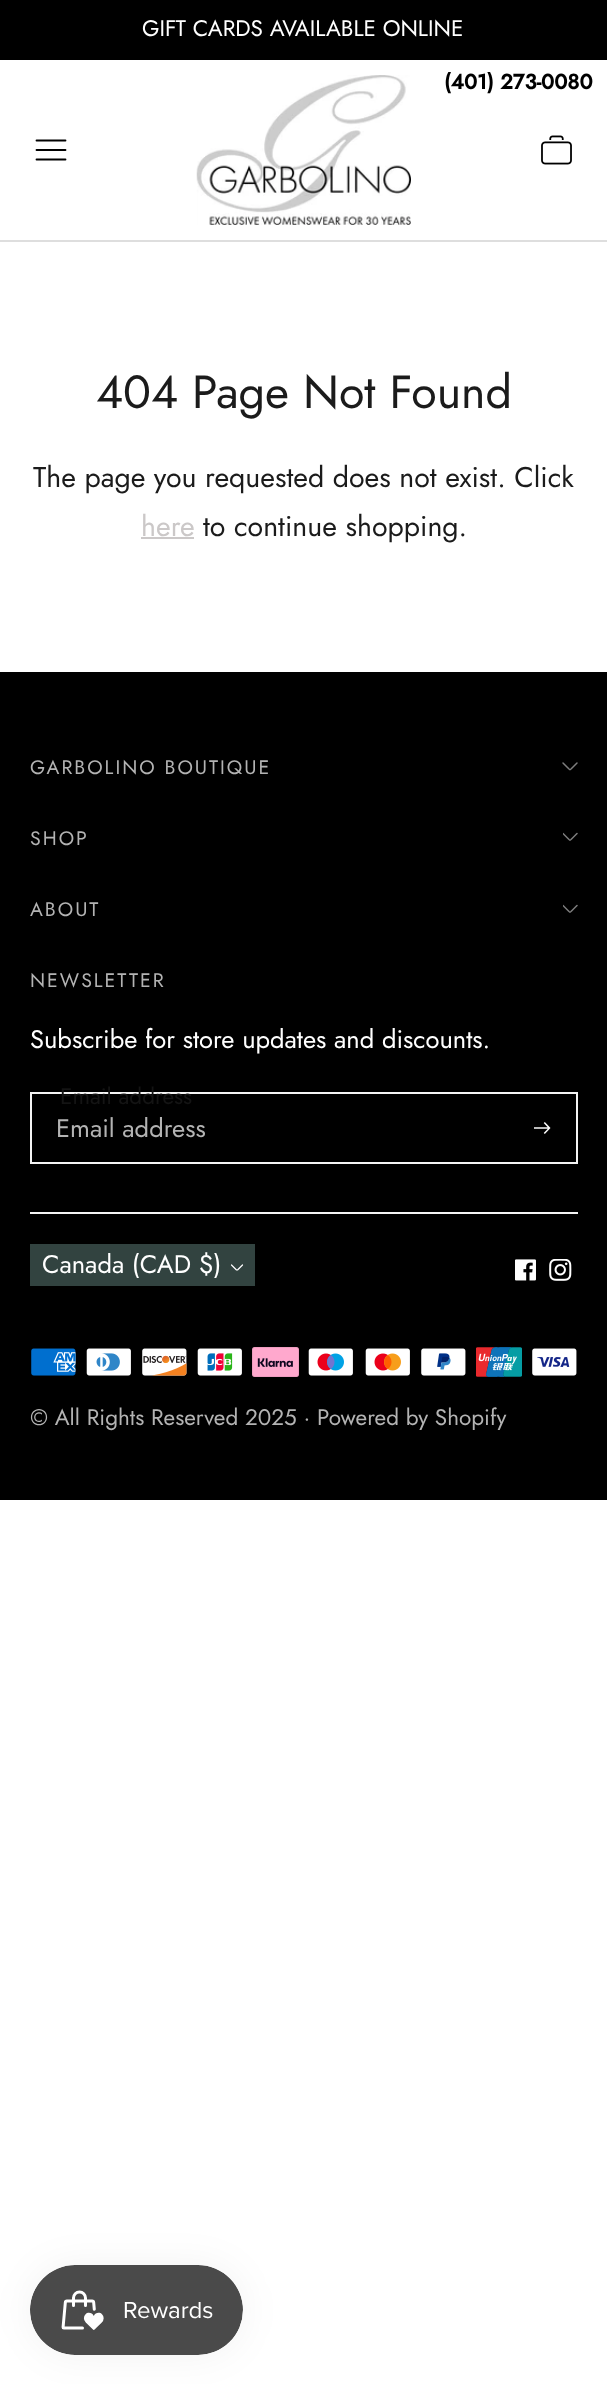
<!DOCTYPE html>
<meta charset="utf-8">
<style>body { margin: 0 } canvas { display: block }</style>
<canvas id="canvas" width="607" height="2384"></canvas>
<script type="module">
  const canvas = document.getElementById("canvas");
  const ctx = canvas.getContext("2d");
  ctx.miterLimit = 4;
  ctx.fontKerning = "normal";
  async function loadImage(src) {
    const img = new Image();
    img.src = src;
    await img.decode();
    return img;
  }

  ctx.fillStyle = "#ffffff";
  ctx.fillRect(0, 0, 607, 2384);
  ctx.fillStyle = "#000000";
  ctx.fillRect(0, 0, 607, 60);
  ctx.font = "22.5px Jost";
  ctx.fillStyle = "#ffffff";
  ctx.fillText("GIFT CARDS AVAILABLE ONLINE", 142, 36);
  ctx.fillStyle = "#dedede";
  ctx.fillRect(0, 240, 607, 2);
  ctx.drawImage(await loadImage("img1.png"), 196, 75, 215, 150);
  ctx.font = "bold 21px Jost";
  ctx.fillStyle = "#000000";
  ctx.fillText("(401) 273-0080", 444, 89);
  ctx.beginPath();
  ctx.moveTo(36.5, 150);
  ctx.lineTo(65.5, 150);
  ctx.moveTo(36.5, 140.5);
  ctx.lineTo(65.5, 140.5);
  ctx.moveTo(36.5, 159.5);
  ctx.lineTo(65.5, 159.5);
  ctx.strokeStyle = "#000000";
  ctx.lineWidth = 1.8;
  ctx.lineCap = "round";
  ctx.lineJoin = "round";
  ctx.stroke();
  ctx.drawImage(await loadImage("img2.png"), 541, 135, 31, 30);
  ctx.font = "46.5px Jost";
  ctx.fillStyle = "#1b1b1b";
  ctx.fillText("404 Page Not Found", 96, 408);
  ctx.font = "28.5px Jost";
  ctx.fillText("The page you requested does not exist. Click", 33, 487);
  ctx.fillStyle = "#cbc8c8";
  ctx.fillText("here", 141, 536);
  ctx.fillRect(141, 537, 53, 2);
  ctx.fillStyle = "#1b1b1b";
  ctx.fillText("to continue shopping.", 203, 536);
  ctx.fillStyle = "#000000";
  ctx.fillRect(0, 672, 607, 828);
  ctx.letterSpacing = "2px";
  ctx.font = "19.5px Jost";
  ctx.fillStyle = "#b3b3b3";
  ctx.fillText("GARBOLINO BOUTIQUE", 30, 774);
  ctx.beginPath();
  ctx.moveTo(563, 763);
  ctx.lineTo(568.5, 768.5);
  ctx.bezierCurveTo(570, 770, 570, 770, 571.5, 768.5);
  ctx.lineTo(577, 763);
  ctx.strokeStyle = "#7d7d7d";
  ctx.lineWidth = 1.5;
  ctx.stroke();
  ctx.fillText("SHOP", 30, 845);
  ctx.save();
  ctx.beginPath();
  ctx.rect(563, 830, 15, 15);
  ctx.clip();
  ctx.beginPath();
  ctx.moveTo(563, 833.5);
  ctx.lineTo(568.5, 839);
  ctx.bezierCurveTo(570, 840.5, 570, 840.5, 571.5, 839);
  ctx.lineTo(577, 833.5);
  ctx.stroke();
  ctx.restore();
  ctx.fillText("ABOUT", 30, 916);
  ctx.save();
  ctx.beginPath();
  ctx.rect(563, 902, 15, 15);
  ctx.clip();
  ctx.beginPath();
  ctx.moveTo(563, 905.5);
  ctx.lineTo(568.5, 911);
  ctx.bezierCurveTo(570, 912.5, 570, 912.5, 571.5, 911);
  ctx.lineTo(577, 905.5);
  ctx.stroke();
  ctx.restore();
  ctx.fillText("NEWSLETTER", 30, 987);
  ctx.letterSpacing = "0px";
  ctx.font = "25.5px Jost";
  ctx.fillStyle = "#ffffff";
  ctx.fillText("Subscribe for store updates and discounts.", 30, 1048);
  ctx.strokeStyle = "#f4f4f4";
  ctx.lineWidth = 2;
  ctx.lineJoin = "miter";
  ctx.strokeRect(31, 1093, 546, 70);
  ctx.font = "22.5px Jost";
  ctx.fillStyle = "#141414";
  ctx.fillText("Email address", 60, 1104);
  ctx.font = "25.5px Jost";
  ctx.fillStyle = "#b3b3b3";
  ctx.fillText("Email address", 56, 1137);
  ctx.drawImage(await loadImage("img3.png"), 534, 1122, 17, 12);
  ctx.fillStyle = "#f4f4f4";
  ctx.fillRect(30, 1212, 548, 2);
  ctx.fillStyle = "#324340";
  ctx.fillRect(30, 1244, 225, 42);
  ctx.fillStyle = "#ffffff";
  ctx.fillText("Canada (CAD $)", 42, 1273);
  ctx.beginPath();
  ctx.moveTo(231.5, 1265);
  ctx.lineTo(236.5, 1270);
  ctx.lineTo(237.5, 1270);
  ctx.lineTo(242.5, 1265);
  ctx.strokeStyle = "#ffffff";
  ctx.lineWidth = 1.2;
  ctx.lineJoin = "round";
  ctx.stroke();
  ctx.drawImage(await loadImage("img4.png"), 515, 1259, 21, 22);
  ctx.drawImage(await loadImage("img5.png"), 549, 1259, 23, 22);
  ctx.drawImage(await loadImage("img6.png"), 31, 1348, 45, 28);
  ctx.drawImage(await loadImage("img7.png"), 86, 1348, 45, 28);
  ctx.drawImage(await loadImage("img8.png"), 142, 1348, 45, 28);
  ctx.drawImage(await loadImage("img9.png"), 197, 1348, 45, 28);
  ctx.drawImage(await loadImage("img10.png"), 252, 1347, 47, 30);
  ctx.drawImage(await loadImage("img11.png"), 308, 1348, 45, 28);
  ctx.drawImage(await loadImage("img12.png"), 365, 1348, 45, 28);
  ctx.drawImage(await loadImage("img13.png"), 421, 1348, 45, 28);
  ctx.drawImage(await loadImage("img14.png"), 476, 1347, 46, 30);
  ctx.drawImage(await loadImage("img15.png"), 532, 1348, 45, 28);
  ctx.font = "22.5px Jost";
  ctx.fillStyle = "#b3b3b3";
  ctx.fillText("© All Rights Reserved 2025 · Powered by Shopify", 30, 1425);
  ctx.fillStyle = "rgba(0, 0, 0, 0.05)";
  ctx.filter = "blur(19px)";
  ctx.beginPath();
  ctx.roundRect(30, 2265, 213, 90, 45);
  ctx.fill();
  ctx.filter = "none";
  ctx.drawImage(await loadImage("img16.png"), 30, 2265, 213, 90);
</script>
